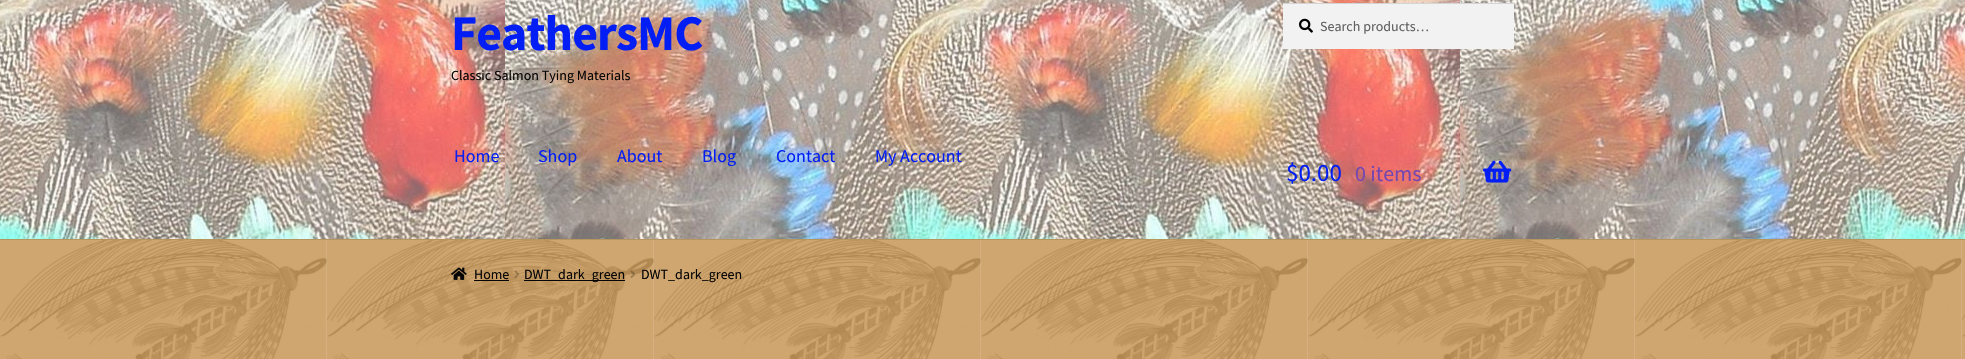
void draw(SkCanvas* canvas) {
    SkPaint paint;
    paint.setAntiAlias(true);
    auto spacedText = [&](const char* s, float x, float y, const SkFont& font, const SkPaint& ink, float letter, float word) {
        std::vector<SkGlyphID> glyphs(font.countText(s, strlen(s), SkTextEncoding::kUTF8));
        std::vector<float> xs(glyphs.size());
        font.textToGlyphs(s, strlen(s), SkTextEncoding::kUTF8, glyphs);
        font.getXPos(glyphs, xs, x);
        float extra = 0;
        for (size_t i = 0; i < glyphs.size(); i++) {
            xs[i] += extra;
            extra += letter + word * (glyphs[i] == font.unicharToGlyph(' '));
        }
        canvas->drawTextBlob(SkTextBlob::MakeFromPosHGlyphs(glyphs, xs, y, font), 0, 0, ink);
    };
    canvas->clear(0xFFFFFFFF);
    canvas->drawImageRect(SkImages::DeferredFromEncodedData(SkData::MakeFromFileName("img1.png")), SkRect::MakeXYWH(0, 240, 1965, 119), SkSamplingOptions());
    canvas->drawImageRect(SkImages::DeferredFromEncodedData(SkData::MakeFromFileName("img2.png")), SkRect::MakeXYWH(0, 0, 1965, 239), SkSamplingOptions());
    paint.setColor(0xFFB7955E);
    canvas->drawRect(SkRect::MakeXYWH(0, 239, 1965, 1), paint);
    SkFont font1(fontMgr->matchFamilyStyle("Source Sans Pro", SkFontStyle::Bold()), 50);
    font1.setSubpixel(true);
    paint.setColor(0xFF021EF4);
    spacedText("FeathersMC", 451, 50, font1, paint, -1, 0);
    SkFont font2(fontMgr->matchFamilyStyle("Source Sans Pro", SkFontStyle::Normal()), 14);
    font2.setSubpixel(true);
    paint.setColor(0xFF050505);
    canvas->drawString("Classic Salmon Tying Materials", 451, 80, font2, paint);
    paint.setColor(0xFFF2F2F2);
    canvas->drawRect(SkRect::MakeXYWH(1283, 4, 231, 45), paint);
    canvas->drawImageRect(SkImages::DeferredFromEncodedData(SkData::MakeFromFileName("img3.png")), SkRect::MakeXYWH(1299, 18, 14, 15), SkSamplingOptions());
    paint.setColor(0xFFD4D4D4);
    canvas->drawRect(SkRect::MakeXYWH(1283, 3, 231, 1), paint);
    paint.setColor(0xFF616161);
    canvas->drawString("Search products…", 1320, 31, font2, paint);
    SkFont font3(fontMgr->matchFamilyStyle("Source Sans Pro", SkFontStyle::Normal()), 18);
    font3.setSubpixel(true);
    paint.setColor(0xFF021EF4);
    canvas->drawString("Home", 454, 162, font3, paint);
    canvas->drawString("Shop", 538, 162, font3, paint);
    canvas->drawString("About", 617, 162, font3, paint);
    canvas->drawString("Blog", 702, 162, font3, paint);
    canvas->drawString("Contact", 776, 162, font3, paint);
    canvas->drawString("My Account", 875, 162, font3, paint);
    SkFont font4(fontMgr->matchFamilyStyle("Source Sans Pro", SkFontStyle::Normal()), 25);
    font4.setSubpixel(true);
    canvas->drawString("$0.00", 1286, 181, font4, paint);
    SkFont font5(fontMgr->matchFamilyStyle("Source Sans Pro", SkFontStyle::Normal()), 22);
    font5.setSubpixel(true);
    paint.setColor(0xFF7347B0);
    canvas->drawString("0 items", 1355, 181, font5, paint);
    canvas->drawImageRect(SkImages::DeferredFromEncodedData(SkData::MakeFromFileName("img4.png")), SkRect::MakeXYWH(1483, 160, 29, 23), SkSamplingOptions());
    canvas->drawImageRect(SkImages::DeferredFromEncodedData(SkData::MakeFromFileName("img5.png")), SkRect::MakeXYWH(451, 267, 16, 13), SkSamplingOptions());
    paint.setColor(0xFF050505);
    canvas->drawString("Home", 474, 279, font2, paint);
    canvas->drawRect(SkRect::MakeXYWH(474, 280, 35, 1), paint);
    canvas->drawImageRect(SkImages::DeferredFromEncodedData(SkData::MakeFromFileName("img6.png")), SkRect::MakeXYWH(514, 270, 6, 8), SkSamplingOptions());
    canvas->drawRect(SkRect::MakeXYWH(524, 280, 101, 1), paint);
    canvas->drawString("DWT_dark_green", 524, 279, font2, paint);
    canvas->drawImageRect(SkImages::DeferredFromEncodedData(SkData::MakeFromFileName("img7.png")), SkRect::MakeXYWH(630, 270, 6, 8), SkSamplingOptions());
    canvas->drawString("DWT_dark_green", 641, 279, font2, paint);
}
